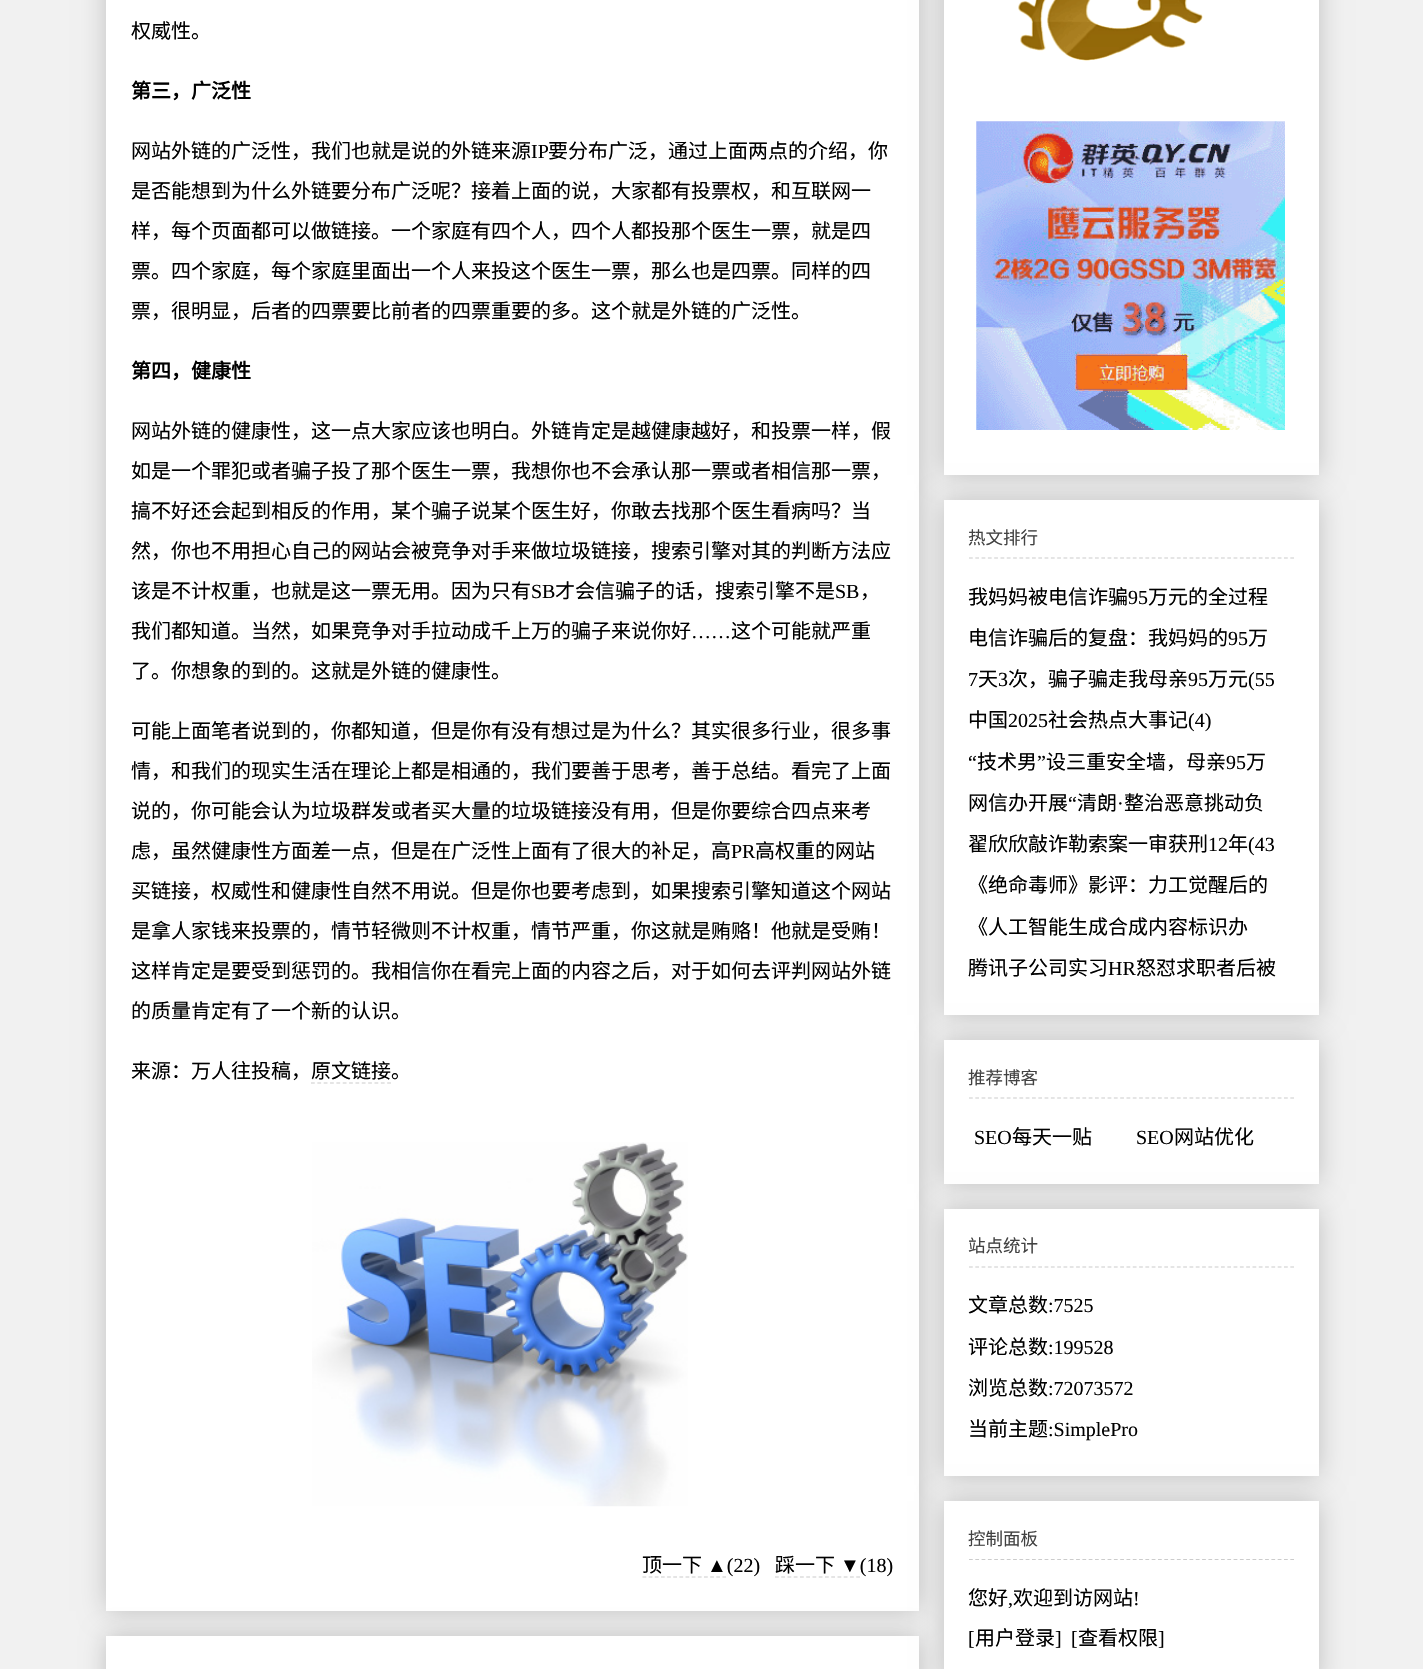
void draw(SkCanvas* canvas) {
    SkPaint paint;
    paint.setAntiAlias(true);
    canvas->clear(0xFFF1F1F1);
    paint.setColor(0x33000000);
    paint.setMaskFilter(SkMaskFilter::MakeBlur(kNormal_SkBlurStyle, 12.5f));
    canvas->drawRect(SkRect::MakeXYWH(106, -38, 813, 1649), paint);
    paint.setMaskFilter(nullptr);
    paint.setColor(0xFFFFFFFF);
    canvas->drawRect(SkRect::MakeXYWH(106, 0, 813, 1611), paint);
    SkFont font1(fontMgr->matchFamilyStyle("Noto Sans CJK SC", SkFontStyle::Normal()), 20);
    font1.setSubpixel(true);
    paint.setColor(0xFF000000);
    canvas->drawString("权威性。", 131, 38, font1, paint);
    SkFont font2(fontMgr->matchFamilyStyle("Noto Sans CJK SC", SkFontStyle::Bold()), 20);
    font2.setSubpixel(true);
    canvas->drawString("第三，广泛性", 131, 98, font2, paint);
    canvas->drawString("网站外链的广泛性，我们也就是说的外链来源", 131, 158, font1, paint);
    SkFont font3(fontMgr->matchFamilyStyle("Liberation Serif", SkFontStyle::Normal()), 20);
    font3.setSubpixel(true);
    canvas->drawString("IP", 531, 158, font3, paint);
    canvas->drawString("要分布广泛，通过上面两点的介绍，你", 548, 158, font1, paint);
    canvas->drawString("是否能想到为什么外链要分布广泛呢？接着上面的说，大家都有投票权，和互联网一", 131, 198, font1, paint);
    canvas->drawString("样，每个页面都可以做链接。一个家庭有四个人，四个人都投那个医生一票，就是四", 131, 238, font1, paint);
    canvas->drawString("票。四个家庭，每个家庭里面出一个人来投这个医生一票，那么也是四票。同样的四", 131, 278, font1, paint);
    canvas->drawString("票，很明显，后者的四票要比前者的四票重要的多。这个就是外链的广泛性。", 131, 318, font1, paint);
    canvas->drawString("第四，健康性", 131, 378, font2, paint);
    canvas->drawString("网站外链的健康性，这一点大家应该也明白。外链肯定是越健康越好，和投票一样，假", 131, 438, font1, paint);
    canvas->drawString("如是一个罪犯或者骗子投了那个医生一票，我想你也不会承认那一票或者相信那一票，", 131, 478, font1, paint);
    canvas->drawString("搞不好还会起到相反的作用，某个骗子说某个医生好，你敢去找那个医生看病吗？当", 131, 518, font1, paint);
    canvas->drawString("然，你也不用担心自己的网站会被竞争对手来做垃圾链接，搜索引擎对其的判断方法应", 131, 558, font1, paint);
    canvas->drawString("该是不计权重，也就是这一票无用。因为只有", 131, 598, font1, paint);
    canvas->drawString("SB", 531, 598, font3, paint);
    canvas->drawString("才会信骗子的话，搜索引擎不是", 555, 598, font1, paint);
    canvas->drawString("SB", 835, 598, font3, paint);
    canvas->drawString("，", 860, 598, font1, paint);
    canvas->drawString("我们都知道。当然，如果竞争对手拉动成千上万的骗子来说你好", 131, 638, font1, paint);
    canvas->drawString("……", 691, 638, font3, paint);
    canvas->drawString("这个可能就严重", 731, 638, font1, paint);
    canvas->drawString("了。你想象的到的。这就是外链的健康性。", 131, 678, font1, paint);
    canvas->drawString("可能上面笔者说到的，你都知道，但是你有没有想过是为什么？其实很多行业，很多事", 131, 738, font1, paint);
    canvas->drawString("情，和我们的现实生活在理论上都是相通的，我们要善于思考，善于总结。看完了上面", 131, 778, font1, paint);
    canvas->drawString("说的，你可能会认为垃圾群发或者买大量的垃圾链接没有用，但是你要综合四点来考", 131, 818, font1, paint);
    canvas->drawString("虑，虽然健康性方面差一点，但是在广泛性上面有了很大的补足，高", 131, 858, font1, paint);
    canvas->drawString("PR", 731, 858, font3, paint);
    canvas->drawString("高权重的网站", 755, 858, font1, paint);
    canvas->drawString("买链接，权威性和健康性自然不用说。但是你也要考虑到，如果搜索引擎知道这个网站", 131, 898, font1, paint);
    canvas->drawString("是拿人家钱来投票的，情节轻微则不计权重，情节严重，你这就是贿赂！他就是受贿！", 131, 938, font1, paint);
    canvas->drawString("这样肯定是要受到惩罚的。我相信你在看完上面的内容之后，对于如何去评判网站外链", 131, 978, font1, paint);
    canvas->drawString("的质量肯定有了一个新的认识。", 131, 1018, font1, paint);
    canvas->drawString("来源：万人往投稿，原文链接。", 131, 1078, font1, paint);
    paint.setStyle(SkPaint::kStroke_Style);
    paint.setStrokeWidth(1.2f);
    paint.setColor(0xFFCCCCCC);
    paint.setPathEffect(SkDashPathEffect::Make({{3.75f, 2.6f}}, 0));
    canvas->drawPath(SkPathBuilder().moveTo(311, 1083).lineTo(391, 1083).detach(), paint);
    paint.setPathEffect(nullptr);
    canvas->drawImageRect(SkImages::DeferredFromEncodedData(SkData::MakeFromFileName("img1.png")), SkRect::MakeXYWH(312, 1142, 376, 365), SkSamplingOptions());
    paint.setStyle(SkPaint::kFill_Style);
    paint.setColor(0xFF000000);
    canvas->drawString("顶一下", 642, 1572, font1, paint);
    paint.setStyle(SkPaint::kStroke_Style);
    paint.setColor(0xFFCCCCCC);
    paint.setPathEffect(SkDashPathEffect::Make({{3.75f, 2.4f}}, 0));
    canvas->drawPath(SkPathBuilder().moveTo(642.5f, 1577).lineTo(726, 1577).detach(), paint);
    paint.setPathEffect(nullptr);
    paint.setStyle(SkPaint::kFill_Style);
    paint.setColor(0xFF000000);
    canvas->drawString("▲(22)", 707, 1572, font3, paint);
    canvas->drawString("踩一下", 775, 1572, font1, paint);
    paint.setStyle(SkPaint::kStroke_Style);
    paint.setColor(0xFFCCCCCC);
    paint.setPathEffect(SkDashPathEffect::Make({{3.75f, 2.5f}}, 0));
    canvas->drawPath(SkPathBuilder().moveTo(775, 1577).lineTo(860, 1577).detach(), paint);
    paint.setPathEffect(nullptr);
    paint.setStyle(SkPaint::kFill_Style);
    paint.setColor(0xFF000000);
    canvas->drawString("▼(18)", 840, 1572, font3, paint);
    paint.setColor(0x33000000);
    paint.setMaskFilter(SkMaskFilter::MakeBlur(kNormal_SkBlurStyle, 12.5f));
    canvas->drawRect(SkRect::MakeXYWH(106, 1636, 813, 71), paint);
    paint.setMaskFilter(nullptr);
    paint.setColor(0xFFFFFFFF);
    canvas->drawRect(SkRect::MakeXYWH(106, 1636, 813, 33), paint);
    paint.setColor(0x33000000);
    paint.setMaskFilter(SkMaskFilter::MakeBlur(kNormal_SkBlurStyle, 12.5f));
    canvas->drawRect(SkRect::MakeXYWH(944, -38, 375, 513), paint);
    paint.setMaskFilter(nullptr);
    paint.setColor(0xFFFFFFFF);
    canvas->drawRect(SkRect::MakeXYWH(944, 0, 375, 475), paint);
    canvas->drawImageRect(SkImages::DeferredFromEncodedData(SkData::MakeFromFileName("img2.png")), SkRect::MakeXYWH(1018, 0, 185, 61), SkSamplingOptions());
    canvas->drawImageRect(SkImages::DeferredFromEncodedData(SkData::MakeFromFileName("img3.png")), SkRect::MakeXYWH(976, 121, 309, 309), SkSamplingOptions());
    paint.setColor(0x33000000);
    paint.setMaskFilter(SkMaskFilter::MakeBlur(kNormal_SkBlurStyle, 12.5f));
    canvas->drawRect(SkRect::MakeXYWH(944, 500, 375, 515), paint);
    paint.setMaskFilter(nullptr);
    paint.setColor(0xFFFFFFFF);
    canvas->drawRect(SkRect::MakeXYWH(944, 500, 375, 515), paint);
    paint.setStyle(SkPaint::kStroke_Style);
    paint.setColor(0xFFCCCCCC);
    paint.setPathEffect(SkDashPathEffect::Make({{3.75f, 2.55f}}, 0));
    canvas->drawPath(SkPathBuilder().moveTo(969, 558).lineTo(1294, 558).detach(), paint);
    paint.setPathEffect(nullptr);
    SkFont font4(fontMgr->matchFamilyStyle("Noto Sans CJK SC", SkFontStyle::Normal()), 17.5f);
    font4.setSubpixel(true);
    paint.setStyle(SkPaint::kFill_Style);
    paint.setColor(0xFF424242);
    canvas->drawString("热文排行", 968, 544, font4, paint);
    paint.setColor(0xFF000000);
    canvas->drawString("我妈妈被电信诈骗", 968, 604, font1, paint);
    canvas->drawString("95", 1128, 604, font3, paint);
    canvas->drawString("万元的全过程", 1148, 604, font1, paint);
    canvas->drawString("电信诈骗后的复盘：我妈妈的", 968, 645, font1, paint);
    canvas->drawString("95", 1228, 645, font3, paint);
    canvas->drawString("万", 1248, 645, font1, paint);
    canvas->drawString("7", 968, 686, font3, paint);
    canvas->drawString("天", 978, 686, font1, paint);
    canvas->drawString("3", 998, 686, font3, paint);
    canvas->drawString("次，骗子骗走我母亲", 1008, 686, font1, paint);
    canvas->drawString("95", 1188, 686, font3, paint);
    canvas->drawString("万元", 1208, 686, font1, paint);
    canvas->drawString("(55", 1248, 686, font3, paint);
    canvas->drawString("中国", 968, 727, font1, paint);
    canvas->drawString("2025", 1008, 727, font3, paint);
    canvas->drawString("社会热点大事记", 1048, 727, font1, paint);
    canvas->drawString("(4)", 1188, 727, font3, paint);
    canvas->drawString("“", 968, 769, font3, paint);
    canvas->drawString("技术男", 977, 769, font1, paint);
    canvas->drawString("”", 1037, 769, font3, paint);
    canvas->drawString("设三重安全墙，母亲", 1046, 769, font1, paint);
    canvas->drawString("95", 1226, 769, font3, paint);
    canvas->drawString("万", 1246, 769, font1, paint);
    canvas->drawString("网信办开展", 968, 810, font1, paint);
    canvas->drawString("“", 1068, 810, font3, paint);
    canvas->drawString("清朗", 1077, 810, font1, paint);
    canvas->drawString("整治恶意挑动负", 1124, 810, font1, paint);
    canvas->drawString("·", 1117, 810, font3, paint);
    canvas->drawString("翟欣欣敲诈勒索案一审获刑", 968, 851, font1, paint);
    canvas->drawString("12", 1208, 851, font3, paint);
    canvas->drawString("年", 1228, 851, font1, paint);
    canvas->drawString("(43", 1248, 851, font3, paint);
    canvas->drawString("《绝命毒师》影评：力工觉醒后的", 968, 892, font1, paint);
    canvas->drawString("《人工智能生成合成内容标识办", 968, 934, font1, paint);
    canvas->drawString("腾讯子公司实习", 968, 975, font1, paint);
    canvas->drawString("HR", 1108, 975, font3, paint);
    canvas->drawString("怒怼求职者后被", 1136, 975, font1, paint);
    paint.setColor(0x33000000);
    paint.setMaskFilter(SkMaskFilter::MakeBlur(kNormal_SkBlurStyle, 12.5f));
    canvas->drawRect(SkRect::MakeXYWH(944, 1040, 375, 144), paint);
    paint.setMaskFilter(nullptr);
    paint.setColor(0xFFFFFFFF);
    canvas->drawRect(SkRect::MakeXYWH(944, 1040, 375, 144), paint);
    paint.setStyle(SkPaint::kStroke_Style);
    paint.setColor(0xFFCCCCCC);
    paint.setPathEffect(SkDashPathEffect::Make({{3.75f, 2.55f}}, 0));
    canvas->drawPath(SkPathBuilder().moveTo(969, 1098).lineTo(1294, 1098).detach(), paint);
    paint.setPathEffect(nullptr);
    paint.setStyle(SkPaint::kFill_Style);
    paint.setColor(0xFF424242);
    canvas->drawString("推荐博客", 968, 1084, font4, paint);
    paint.setColor(0xFF000000);
    canvas->drawString("SEO", 974, 1144, font3, paint);
    canvas->drawString("每天一贴", 1012, 1144, font1, paint);
    canvas->drawString("SEO", 1136, 1144, font3, paint);
    canvas->drawString("网站优化", 1174, 1144, font1, paint);
    paint.setColor(0x33000000);
    paint.setMaskFilter(SkMaskFilter::MakeBlur(kNormal_SkBlurStyle, 12.5f));
    canvas->drawRect(SkRect::MakeXYWH(944, 1209, 375, 267), paint);
    paint.setMaskFilter(nullptr);
    paint.setColor(0xFFFFFFFF);
    canvas->drawRect(SkRect::MakeXYWH(944, 1209, 375, 267), paint);
    paint.setStyle(SkPaint::kStroke_Style);
    paint.setColor(0xFFCCCCCC);
    paint.setPathEffect(SkDashPathEffect::Make({{3.75f, 2.55f}}, 0));
    canvas->drawPath(SkPathBuilder().moveTo(969, 1267).lineTo(1294, 1267).detach(), paint);
    paint.setPathEffect(nullptr);
    paint.setStyle(SkPaint::kFill_Style);
    paint.setColor(0xFF424242);
    canvas->drawString("站点统计", 968, 1252, font4, paint);
    paint.setColor(0xFF000000);
    canvas->drawString("文章总数", 968, 1312, font1, paint);
    canvas->drawString(":7525", 1048, 1312, font3, paint);
    canvas->drawString("评论总数", 968, 1354, font1, paint);
    canvas->drawString(":199528", 1048, 1354, font3, paint);
    canvas->drawString("浏览总数", 968, 1395, font1, paint);
    canvas->drawString(":72073572", 1048, 1395, font3, paint);
    canvas->drawString("当前主题", 968, 1436, font1, paint);
    canvas->drawString(":SimplePro", 1048, 1436, font3, paint);
    paint.setColor(0x33000000);
    paint.setMaskFilter(SkMaskFilter::MakeBlur(kNormal_SkBlurStyle, 12.5f));
    canvas->drawRect(SkRect::MakeXYWH(944, 1501, 375, 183), paint);
    paint.setMaskFilter(nullptr);
    paint.setColor(0xFFFFFFFF);
    canvas->drawRect(SkRect::MakeXYWH(944, 1501, 375, 168), paint);
    paint.setStyle(SkPaint::kStroke_Style);
    paint.setColor(0xFFCCCCCC);
    paint.setPathEffect(SkDashPathEffect::Make({{3.75f, 2.55f}}, 0));
    canvas->drawPath(SkPathBuilder().moveTo(969, 1559.5f).lineTo(1294, 1559.5f).detach(), paint);
    paint.setPathEffect(nullptr);
    paint.setStyle(SkPaint::kFill_Style);
    paint.setColor(0xFF424242);
    canvas->drawString("控制面板", 968, 1545, font4, paint);
    paint.setColor(0xFF000000);
    canvas->drawString("您好", 968, 1605, font1, paint);
    canvas->drawString(",", 1008, 1605, font3, paint);
    canvas->drawString("欢迎到访网站", 1013, 1605, font1, paint);
    canvas->drawString("!", 1133, 1605, font3, paint);
    canvas->drawString("[", 968, 1645, font3, paint);
    canvas->drawString("用户登录", 975, 1645, font1, paint);
    canvas->drawString("]", 1055, 1645, font3, paint);
    canvas->drawString("[", 1071, 1645, font3, paint);
    canvas->drawString("查看权限", 1078, 1645, font1, paint);
    canvas->drawString("]", 1158, 1645, font3, paint);
}
